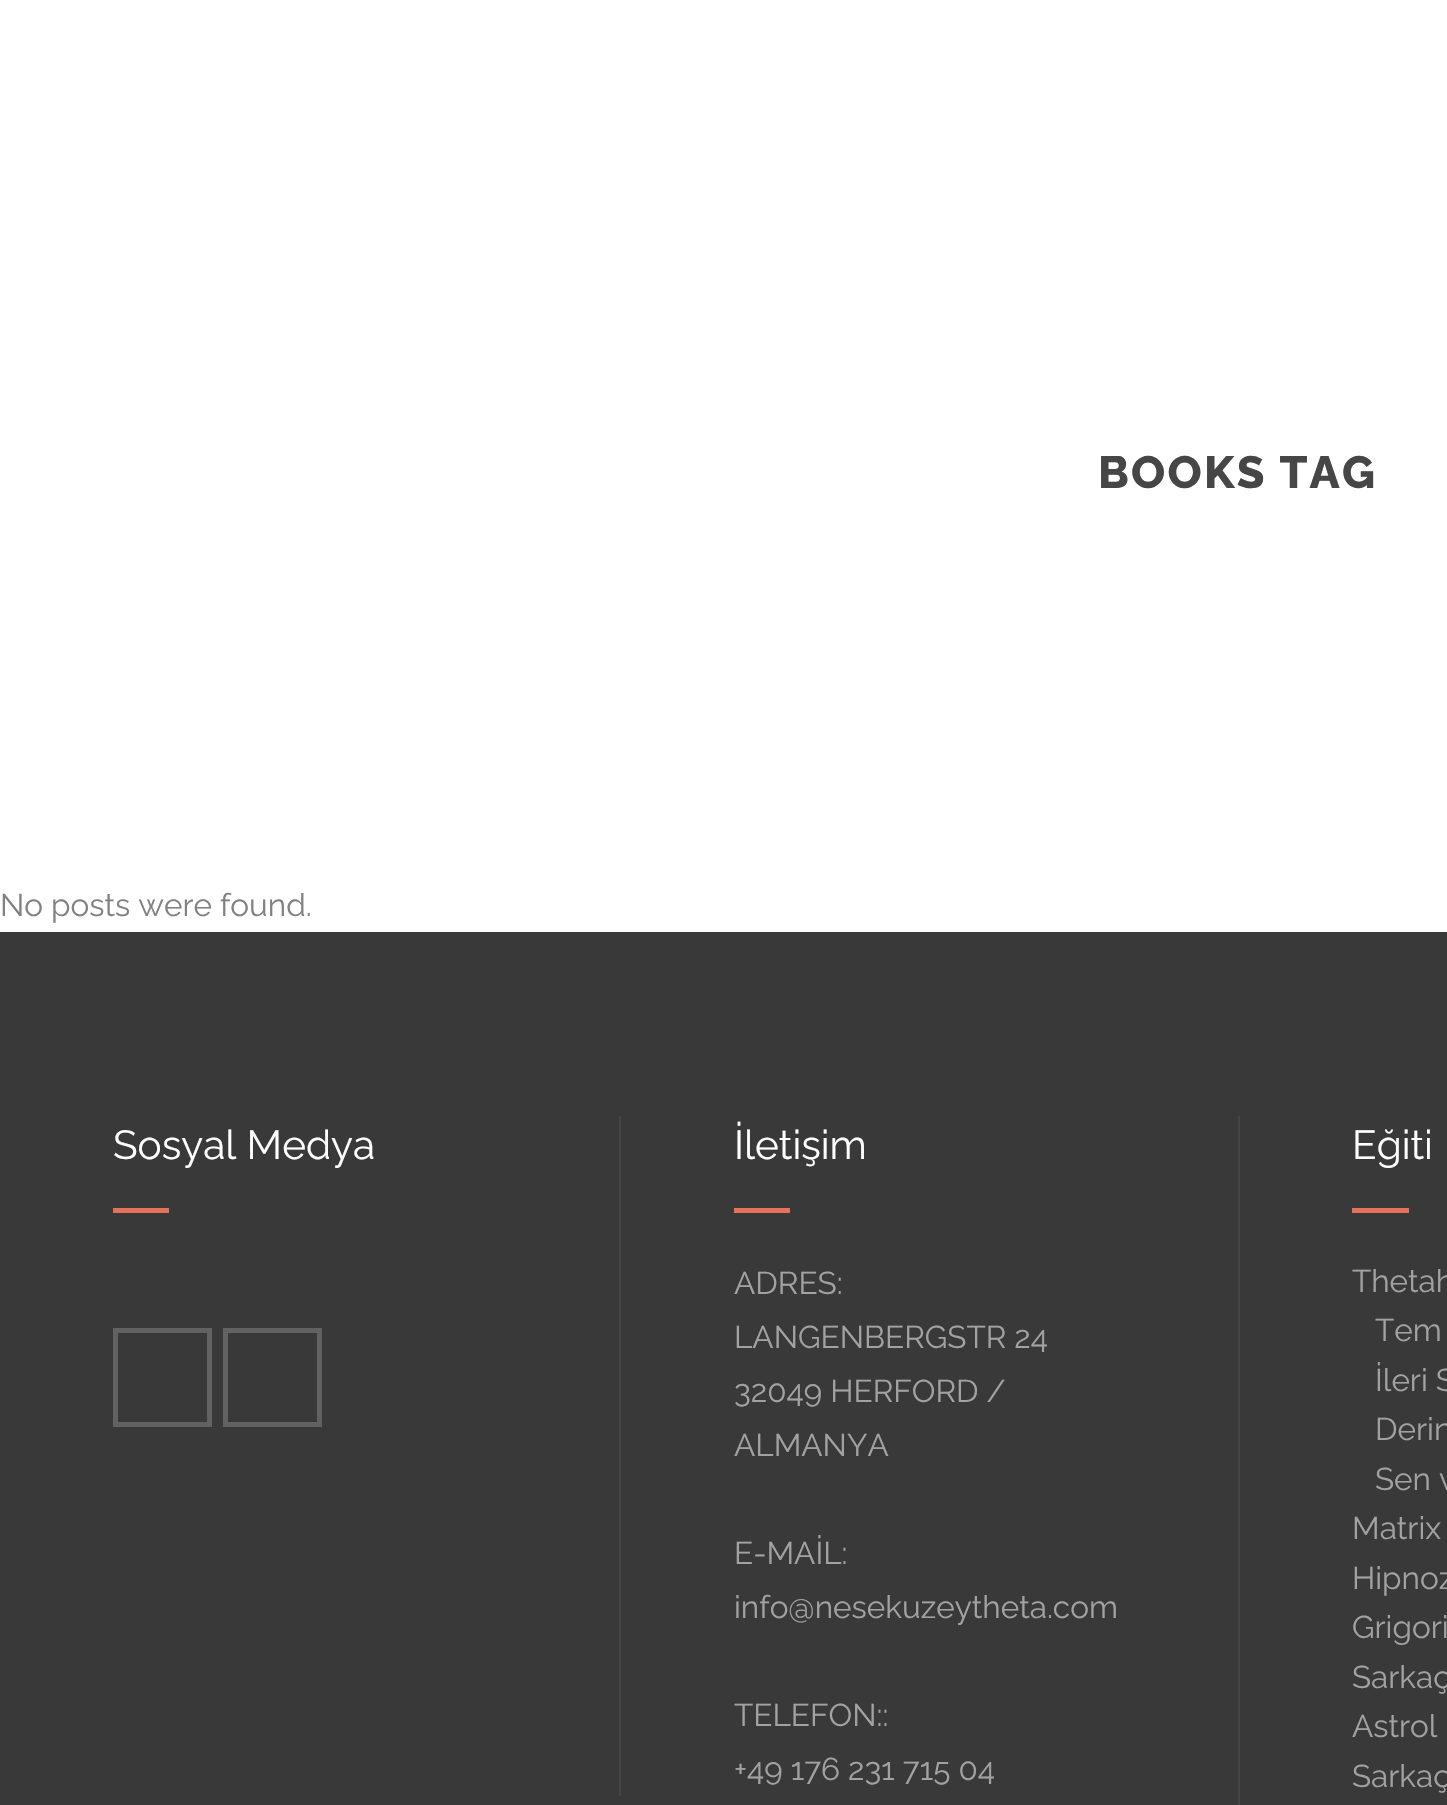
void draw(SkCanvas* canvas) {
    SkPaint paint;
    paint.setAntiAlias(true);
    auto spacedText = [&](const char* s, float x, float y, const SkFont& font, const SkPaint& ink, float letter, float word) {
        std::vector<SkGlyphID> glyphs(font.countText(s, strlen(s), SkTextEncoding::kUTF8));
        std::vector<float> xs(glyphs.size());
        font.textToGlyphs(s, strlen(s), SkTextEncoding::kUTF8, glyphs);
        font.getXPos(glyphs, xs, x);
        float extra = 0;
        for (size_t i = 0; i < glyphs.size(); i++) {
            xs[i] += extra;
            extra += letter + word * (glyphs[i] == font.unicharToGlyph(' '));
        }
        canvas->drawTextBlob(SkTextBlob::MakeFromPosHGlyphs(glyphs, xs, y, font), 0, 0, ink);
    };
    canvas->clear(0xFFFFFFFF);
    SkFont font1(fontMgr->matchFamilyStyle("Raleway", SkFontStyle(800, SkFontStyle::kNormal_Width, SkFontStyle::kUpright_Slant)), 45);
    font1.setSubpixel(true);
    paint.setColor(0xFF464646);
    spacedText("BOOKS TAG", 1098, 488, font1, paint, 2.25f, 0);
    SkFont font2(fontMgr->matchFamilyStyle("Raleway", SkFontStyle::Normal()), 31.5f);
    font2.setSubpixel(true);
    paint.setColor(0xFF818181);
    canvas->drawString("No posts were found.", 0, 916, font2, paint);
    paint.setColor(0xFF393939);
    canvas->drawRect(SkRect::MakeXYWH(0, 932, 1447, 873), paint);
    SkFont font3(fontMgr->matchFamilyStyle("Raleway", SkFontStyle::Normal()), 40.5f);
    font3.setSubpixel(true);
    paint.setColor(0xFFFFFFFF);
    canvas->drawString("Sosyal Medya", 113, 1159, font3, paint);
    paint.setColor(0xFFE5735C);
    canvas->drawRect(SkRect::MakeXYWH(113, 1208, 56, 5), paint);
    paint.setStyle(SkPaint::kStroke_Style);
    paint.setStrokeWidth(5);
    paint.setColor(0xFF626262);
    canvas->drawRect(SkRect::MakeXYWH(115.5f, 1330.5f, 94, 94), paint);
    canvas->drawRect(SkRect::MakeXYWH(225.5f, 1330.5f, 94, 94), paint);
    paint.setStyle(SkPaint::kFill_Style);
    paint.setColor(0xFF444444);
    canvas->drawRect(SkRect::MakeXYWH(619, 1116, 2, 680), paint);
    paint.setColor(0xFFFFFFFF);
    canvas->drawString("İletişim", 734, 1159, font3, paint);
    paint.setColor(0xFFE5735C);
    canvas->drawRect(SkRect::MakeXYWH(734, 1208, 56, 5), paint);
    paint.setColor(0xFFA2A2A2);
    canvas->drawString("ADRES:", 734, 1294, font2, paint);
    canvas->drawString("LANGENBERGSTR 24", 734, 1348, font2, paint);
    canvas->drawString("32049 HERFORD /", 734, 1402, font2, paint);
    canvas->drawString("ALMANYA", 734, 1456, font2, paint);
    canvas->drawString("E-MAİL:", 734, 1564, font2, paint);
    canvas->drawString("info@nesekuzeytheta.com", 734, 1618, font2, paint);
    canvas->drawString("TELEFON::", 734, 1726, font2, paint);
    canvas->drawString("+49 176 231 715 04", 734, 1780, font2, paint);
    paint.setColor(0xFF444444);
    canvas->drawRect(SkRect::MakeXYWH(1238, 1116, 2, 689), paint);
    paint.setColor(0xFFFFFFFF);
    canvas->drawString("Eğiti", 1352, 1159, font3, paint);
    paint.setColor(0xFFE5735C);
    canvas->drawRect(SkRect::MakeXYWH(1352, 1208, 57, 5), paint);
    paint.setColor(0xFFA2A2A2);
    canvas->drawString("Thetah", 1352, 1292, font2, paint);
    canvas->drawString("Tem", 1375, 1341, font2, paint);
    canvas->drawString("İleri S", 1375, 1391, font2, paint);
    canvas->drawString("Derin", 1375, 1440, font2, paint);
    canvas->drawString("Sen v", 1375, 1490, font2, paint);
    canvas->drawString("Matrix", 1352, 1539, font2, paint);
    canvas->drawString("Hipnoz", 1352, 1589, font2, paint);
    canvas->drawString("Grigori", 1352, 1638, font2, paint);
    canvas->drawString("Sarkaç", 1352, 1688, font2, paint);
    canvas->drawString("Astrol", 1352, 1737, font2, paint);
    canvas->drawString("Sarkaç", 1352, 1787, font2, paint);
}
